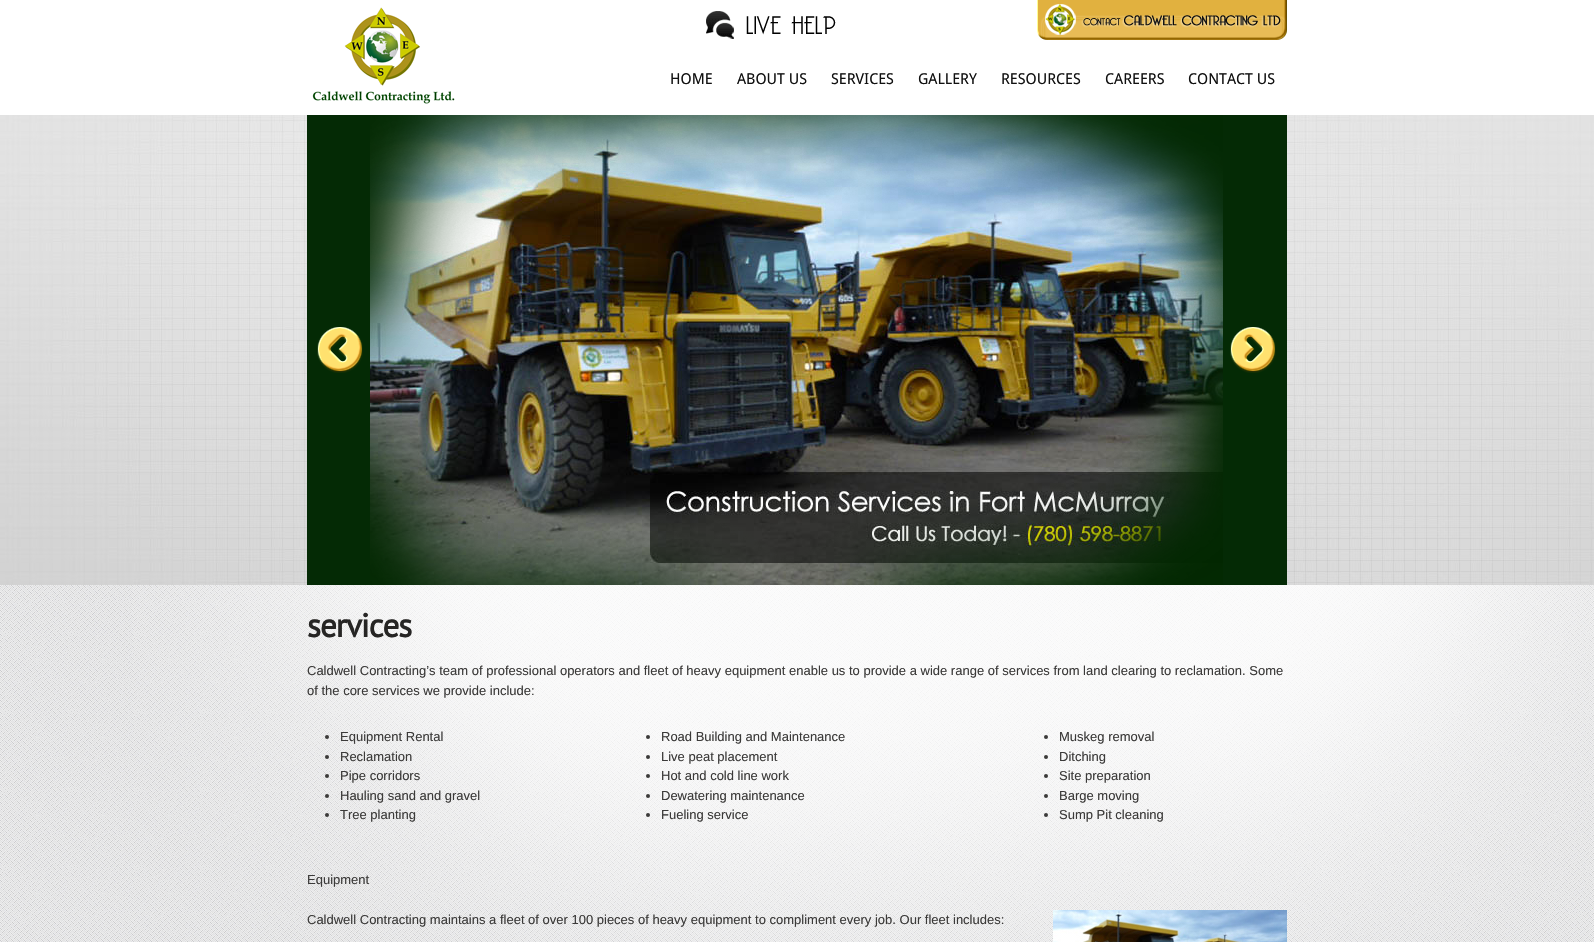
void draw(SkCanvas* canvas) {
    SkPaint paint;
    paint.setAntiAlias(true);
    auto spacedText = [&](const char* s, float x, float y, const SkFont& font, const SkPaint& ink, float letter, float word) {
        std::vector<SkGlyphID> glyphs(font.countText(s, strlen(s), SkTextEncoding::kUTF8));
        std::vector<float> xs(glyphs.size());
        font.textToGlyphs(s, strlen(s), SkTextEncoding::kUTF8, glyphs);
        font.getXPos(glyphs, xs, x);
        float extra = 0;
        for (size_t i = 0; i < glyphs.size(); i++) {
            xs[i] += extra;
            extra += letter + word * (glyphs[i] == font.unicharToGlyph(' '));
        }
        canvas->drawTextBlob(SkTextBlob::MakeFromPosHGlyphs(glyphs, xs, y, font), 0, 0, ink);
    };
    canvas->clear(0xFFFFFFFF);
    canvas->drawImageRect(SkImages::DeferredFromEncodedData(SkData::MakeFromFileName("img1.png")), SkRect::MakeXYWH(0, 585, 1594, 357), SkSamplingOptions());
    canvas->drawImageRect(SkImages::DeferredFromEncodedData(SkData::MakeFromFileName("img2.png")), SkRect::MakeXYWH(132, 585, 1462, 357), SkSamplingOptions());
    canvas->drawImageRect(SkImages::DeferredFromEncodedData(SkData::MakeFromFileName("img3.png")), SkRect::MakeXYWH(312, 7, 143, 97), SkSamplingOptions());
    canvas->drawImageRect(SkImages::DeferredFromEncodedData(SkData::MakeFromFileName("img4.png")), SkRect::MakeXYWH(706, 11, 130, 28), SkSamplingOptions());
    canvas->drawImageRect(SkImages::DeferredFromEncodedData(SkData::MakeFromFileName("img5.png")), SkRect::MakeXYWH(1037, 0, 250, 40), SkSamplingOptions());
    SkFont font1(fontMgr->matchFamilyStyle("Droid Sans", SkFontStyle::Normal()), 15);
    font1.setSubpixel(true);
    paint.setColor(0xFF111111);
    canvas->drawString("HOME", 670, 84, font1, paint);
    canvas->drawString("ABOUT US", 737, 84, font1, paint);
    canvas->drawString("SERVICES", 831, 84, font1, paint);
    canvas->drawString("GALLERY", 918, 84, font1, paint);
    canvas->drawString("RESOURCES", 1001, 84, font1, paint);
    canvas->drawString("CAREERS", 1105, 84, font1, paint);
    canvas->drawString("CONTACT US", 1188, 84, font1, paint);
    canvas->drawImageRect(SkImages::DeferredFromEncodedData(SkData::MakeFromFileName("img6.png")), SkRect::MakeXYWH(0, 115, 1594, 470), SkSamplingOptions());
    paint.setColor(0xFF042A05);
    canvas->drawRect(SkRect::MakeXYWH(307, 115, 980, 470), paint);
    canvas->drawImageRect(SkImages::DeferredFromEncodedData(SkData::MakeFromFileName("img7.png")), SkRect::MakeXYWH(370, 115, 853, 470), SkSamplingOptions());
    canvas->drawImageRect(SkImages::DeferredFromEncodedData(SkData::MakeFromFileName("img8.png")), SkRect::MakeXYWH(370, 115, 853, 470), SkSamplingOptions());
    canvas->drawImageRect(SkImages::DeferredFromEncodedData(SkData::MakeFromFileName("img9.png")), SkRect::MakeXYWH(317, 327, 46, 46), SkSamplingOptions());
    canvas->drawImageRect(SkImages::DeferredFromEncodedData(SkData::MakeFromFileName("img10.png")), SkRect::MakeXYWH(1230, 327, 46, 46), SkSamplingOptions());
    SkFont font2(fontMgr->matchFamilyStyle("PT Sans", SkFontStyle::Bold()), 33);
    font2.setSubpixel(true);
    paint.setColor(0xFF262524);
    spacedText("services", 307, 637, font2, paint, -1, 0);
    SkFont font3(fontMgr->matchFamilyStyle("Liberation Sans", SkFontStyle::Normal()), 13);
    font3.setSubpixel(true);
    paint.setColor(0xFF3B3A39);
    canvas->drawString("Caldwell Contracting’s team of professional operators and fleet of heavy equipment enable us to provide a wide range of services from land clearing to reclamation. Some", 307, 675, font3, paint);
    canvas->drawString("of the core services we provide include:", 307, 695, font3, paint);
    canvas->drawCircle(327, 737, 2, paint);
    canvas->drawString("Equipment Rental", 340, 741, font3, paint);
    canvas->drawCircle(327, 757, 2, paint);
    canvas->drawString("Reclamation", 340, 761, font3, paint);
    canvas->drawCircle(327, 776, 2, paint);
    canvas->drawString("Pipe corridors", 340, 780, font3, paint);
    canvas->drawCircle(327, 796, 2, paint);
    canvas->drawString("Hauling sand and gravel", 340, 800, font3, paint);
    canvas->drawCircle(327, 815, 2, paint);
    canvas->drawString("Tree planting", 340, 819, font3, paint);
    canvas->drawCircle(648, 737, 2, paint);
    canvas->drawString("Road Building and Maintenance", 661, 741, font3, paint);
    canvas->drawCircle(648, 757, 2, paint);
    canvas->drawString("Live peat placement", 661, 761, font3, paint);
    canvas->drawCircle(648, 776, 2, paint);
    canvas->drawString("Hot and cold line work", 661, 780, font3, paint);
    canvas->drawCircle(648, 796, 2, paint);
    canvas->drawString("Dewatering maintenance", 661, 800, font3, paint);
    canvas->drawCircle(648, 815, 2, paint);
    canvas->drawString("Fueling service", 661, 819, font3, paint);
    canvas->drawCircle(1046, 737, 2, paint);
    canvas->drawString("Muskeg removal", 1059, 741, font3, paint);
    canvas->drawCircle(1046, 757, 2, paint);
    canvas->drawString("Ditching", 1059, 761, font3, paint);
    canvas->drawCircle(1046, 776, 2, paint);
    canvas->drawString("Site preparation", 1059, 780, font3, paint);
    canvas->drawCircle(1046, 796, 2, paint);
    canvas->drawString("Barge moving", 1059, 800, font3, paint);
    canvas->drawCircle(1046, 815, 2, paint);
    canvas->drawString("Sump Pit cleaning", 1059, 819, font3, paint);
    canvas->drawString("Equipment", 307, 884, font3, paint);
    canvas->drawString("Caldwell Contracting maintains a fleet of over 100 pieces of heavy equipment to compliment every job. Our fleet includes:", 307, 924, font3, paint);
    canvas->drawImageRect(SkImages::DeferredFromEncodedData(SkData::MakeFromFileName("img11.png")), SkRect::MakeXYWH(1053, 910, 234, 32), SkSamplingOptions());
}
